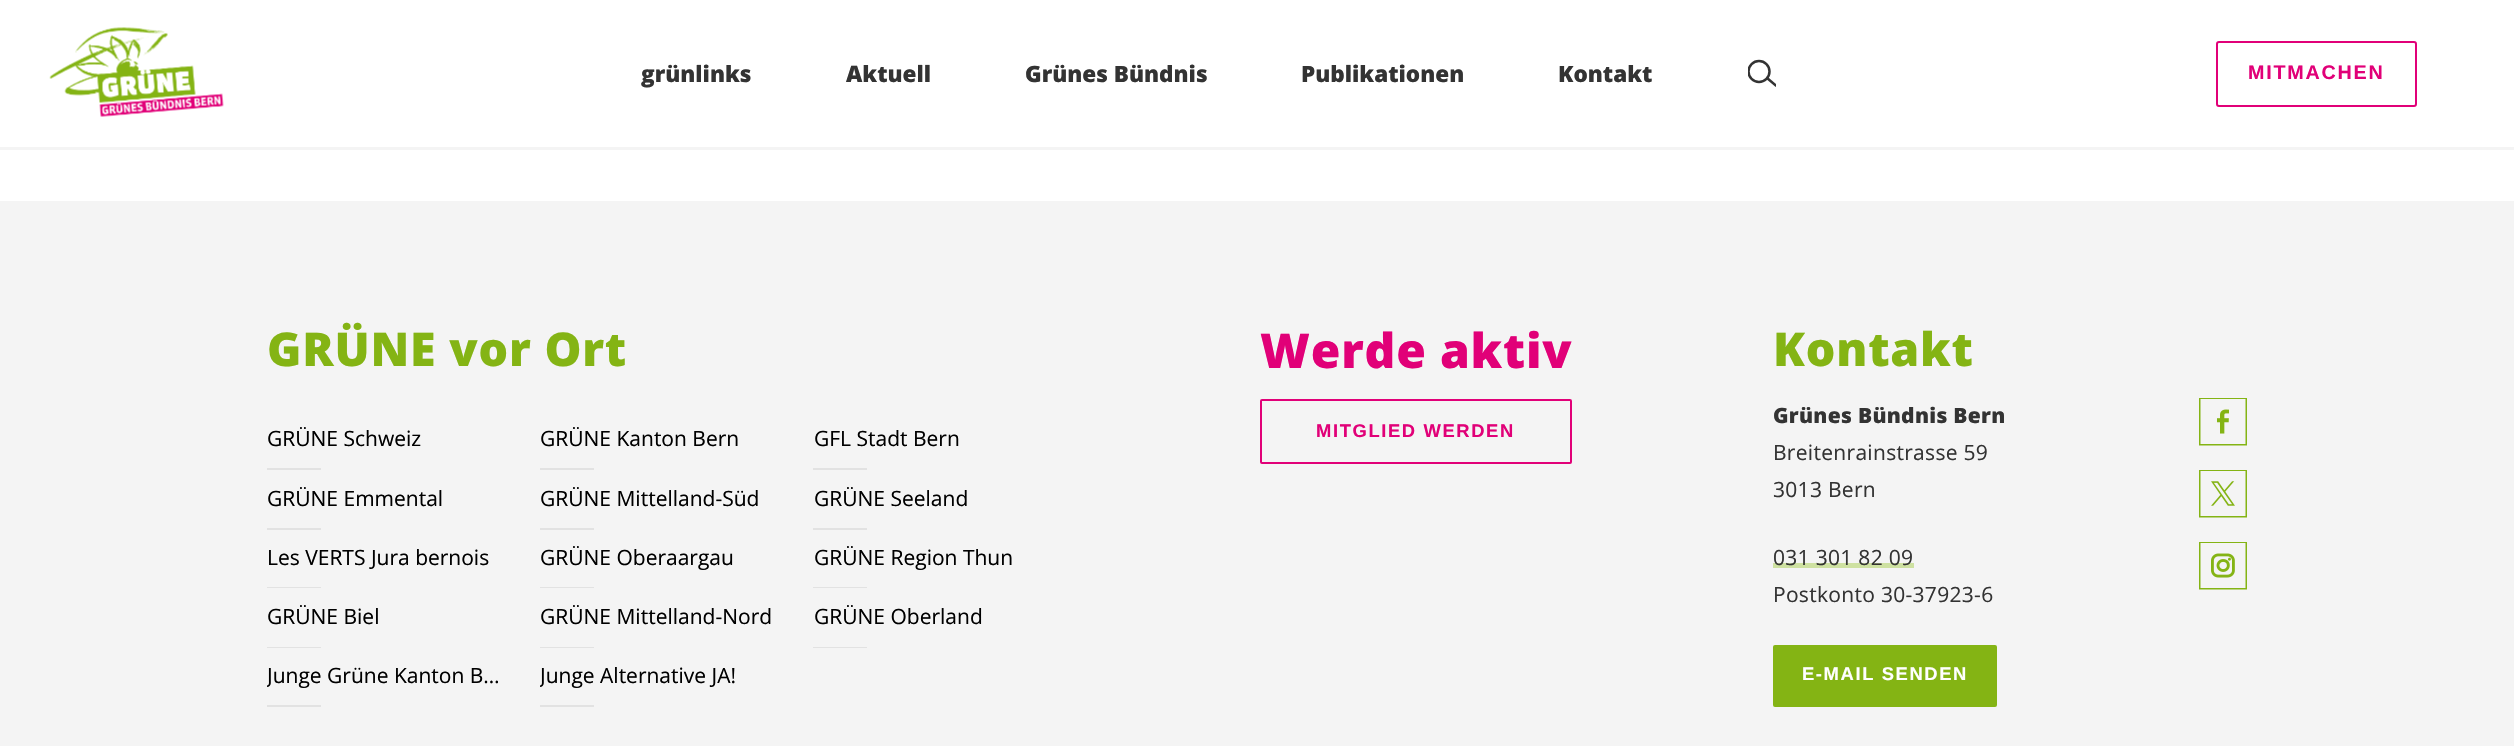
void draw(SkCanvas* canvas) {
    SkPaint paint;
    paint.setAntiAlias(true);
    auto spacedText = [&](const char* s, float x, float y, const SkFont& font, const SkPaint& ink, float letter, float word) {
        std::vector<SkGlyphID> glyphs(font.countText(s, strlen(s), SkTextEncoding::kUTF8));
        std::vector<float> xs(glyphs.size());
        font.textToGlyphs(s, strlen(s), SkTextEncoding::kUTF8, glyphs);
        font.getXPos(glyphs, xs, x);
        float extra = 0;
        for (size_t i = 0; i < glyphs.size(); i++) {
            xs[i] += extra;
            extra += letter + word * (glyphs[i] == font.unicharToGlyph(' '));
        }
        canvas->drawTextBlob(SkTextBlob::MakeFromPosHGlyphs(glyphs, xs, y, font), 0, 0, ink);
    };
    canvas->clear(0xFFFFFFFF);
    paint.setColor(0xFFF4F4F4);
    canvas->drawRect(SkRect::MakeXYWH(0, 147, 2514, 3), paint);
    canvas->drawImageRect(SkImages::DeferredFromEncodedData(SkData::MakeFromFileName("img1.png")), SkRect::MakeXYWH(49, 27, 175, 90), SkSamplingOptions());
    SkFont font1(fontMgr->matchFamilyStyle("Open Sans", SkFontStyle(800, SkFontStyle::kNormal_Width, SkFontStyle::kUpright_Slant)), 22.5f);
    font1.setSubpixel(true);
    paint.setColor(0xFF333333);
    canvas->drawString("grünlinks", 641, 82, font1, paint);
    canvas->drawString("Aktuell", 846, 82, font1, paint);
    canvas->drawString("Grünes Bündnis", 1025, 82, font1, paint);
    canvas->drawString("Publikationen", 1301, 82, font1, paint);
    canvas->drawString("Kontakt", 1558, 82, font1, paint);
    canvas->save();
    canvas->clipRect(SkRect::MakeXYWH(1748, 59, 28, 28));
    paint.setStyle(SkPaint::kStroke_Style);
    paint.setStrokeWidth(2.5f);
    canvas->drawCircle(1759, 71.5f, 10.5f, paint);
    canvas->drawPath(SkPathBuilder().moveTo(1767, 78).lineTo(1776.5f, 86).detach(), paint);
    canvas->restore();
    paint.setStrokeWidth(2);
    paint.setColor(0xFFE10078);
    canvas->drawRoundRect(SkRect::MakeXYWH(2217, 42, 199, 64), 2, 2, paint);
    SkFont font2(fontMgr->matchFamilyStyle("Liberation Sans", SkFontStyle::Bold()), 19.75f);
    font2.setSubpixel(true);
    paint.setStyle(SkPaint::kFill_Style);
    spacedText("MITMACHEN", 2248, 79, font2, paint, 1.75f, 0);
    paint.setColor(0xFFF4F4F4);
    canvas->drawRect(SkRect::MakeXYWH(0, 201, 2514, 545), paint);
    SkFont font3(fontMgr->matchFamilyStyle("Open Sans", SkFontStyle(800, SkFontStyle::kNormal_Width, SkFontStyle::kUpright_Slant)), 46.5f);
    font3.setSubpixel(true);
    paint.setColor(0xFF84B414);
    spacedText("GRÜNE vor Ort", 267, 366, font3, paint, 0.8f, 0);
    SkFont font4(fontMgr->matchFamilyStyle("Open Sans", SkFontStyle::Normal()), 21);
    font4.setSubpixel(true);
    paint.setColor(0xFF000000);
    canvas->drawString("GRÜNE Schweiz", 267, 446, font4, paint);
    paint.setColor(0xFFE2E2E2);
    canvas->drawRect(SkRect::MakeXYWH(267, 468, 54, 2), paint);
    paint.setColor(0xFF000000);
    canvas->drawString("GRÜNE Kanton Bern", 540, 446, font4, paint);
    paint.setColor(0xFFE2E2E2);
    canvas->drawRect(SkRect::MakeXYWH(540, 468, 54, 2), paint);
    paint.setColor(0xFF000000);
    canvas->drawString("GFL Stadt Bern", 814, 446, font4, paint);
    paint.setColor(0xFFE2E2E2);
    canvas->drawRect(SkRect::MakeXYWH(813, 468, 54, 2), paint);
    paint.setColor(0xFF000000);
    canvas->drawString("GRÜNE Emmental", 267, 506, font4, paint);
    paint.setColor(0xFFE2E2E2);
    canvas->drawRect(SkRect::MakeXYWH(267, 528, 54, 2), paint);
    paint.setColor(0xFF000000);
    canvas->drawString("GRÜNE Mittelland-Süd", 540, 506, font4, paint);
    paint.setColor(0xFFE2E2E2);
    canvas->drawRect(SkRect::MakeXYWH(540, 528, 54, 2), paint);
    paint.setColor(0xFF000000);
    canvas->drawString("GRÜNE Seeland", 814, 506, font4, paint);
    paint.setColor(0xFFE2E2E2);
    canvas->drawRect(SkRect::MakeXYWH(813, 528, 54, 2), paint);
    paint.setColor(0xFF000000);
    canvas->drawString("Les VERTS Jura bernois", 267, 565, font4, paint);
    paint.setColor(0xFFE2E2E2);
    canvas->drawRect(SkRect::MakeXYWH(267, 587, 54, 1), paint);
    paint.setColor(0xFF000000);
    canvas->drawString("GRÜNE Oberaargau", 540, 565, font4, paint);
    paint.setColor(0xFFE2E2E2);
    canvas->drawRect(SkRect::MakeXYWH(540, 587, 54, 1), paint);
    paint.setColor(0xFF000000);
    canvas->drawString("GRÜNE Region Thun", 814, 565, font4, paint);
    paint.setColor(0xFFE2E2E2);
    canvas->drawRect(SkRect::MakeXYWH(813, 587, 54, 1), paint);
    paint.setColor(0xFF000000);
    canvas->drawString("GRÜNE Biel", 267, 624, font4, paint);
    paint.setColor(0xFFE2E2E2);
    canvas->drawRect(SkRect::MakeXYWH(267, 647, 54, 1), paint);
    paint.setColor(0xFF000000);
    canvas->drawString("GRÜNE Mittelland-Nord", 540, 624, font4, paint);
    paint.setColor(0xFFE2E2E2);
    canvas->drawRect(SkRect::MakeXYWH(540, 647, 54, 1), paint);
    paint.setColor(0xFF000000);
    canvas->drawString("GRÜNE Oberland", 814, 624, font4, paint);
    paint.setColor(0xFFE2E2E2);
    canvas->drawRect(SkRect::MakeXYWH(813, 647, 54, 1), paint);
    canvas->save();
    canvas->clipRect(SkRect::MakeXYWH(267, 648, 237, 59));
    paint.setColor(0xFF000000);
    canvas->drawString("Junge Grüne Kanton B…", 267, 683, font4, paint);
    canvas->restore();
    paint.setColor(0xFFE2E2E2);
    canvas->drawRect(SkRect::MakeXYWH(267, 705, 54, 2), paint);
    canvas->save();
    canvas->clipRect(SkRect::MakeXYWH(540, 648, 237, 59));
    paint.setColor(0xFF000000);
    canvas->drawString("Junge Alternative JA!", 540, 683, font4, paint);
    canvas->restore();
    paint.setColor(0xFFE2E2E2);
    canvas->drawRect(SkRect::MakeXYWH(540, 705, 54, 2), paint);
    SkFont font5(fontMgr->matchFamilyStyle("Open Sans", SkFontStyle(800, SkFontStyle::kNormal_Width, SkFontStyle::kUpright_Slant)), 48);
    font5.setSubpixel(true);
    paint.setColor(0xFFE10078);
    spacedText("Werde aktiv", 1260, 368, font5, paint, 0.8f, 0);
    paint.setStyle(SkPaint::kStroke_Style);
    canvas->drawRoundRect(SkRect::MakeXYWH(1261, 400, 310, 63), 1, 1, paint);
    SkFont font6(fontMgr->matchFamilyStyle("Liberation Sans", SkFontStyle::Bold()), 18.4f);
    font6.setSubpixel(true);
    paint.setStyle(SkPaint::kFill_Style);
    spacedText("MITGLIED WERDEN", 1316, 437, font6, paint, 1.6f, 0);
    paint.setColor(0xFF84B414);
    spacedText("Kontakt", 1773, 366, font3, paint, 0.8f, 0);
    SkFont font7(fontMgr->matchFamilyStyle("Open Sans", SkFontStyle(800, SkFontStyle::kNormal_Width, SkFontStyle::kUpright_Slant)), 21);
    font7.setSubpixel(true);
    paint.setColor(0xFF333333);
    spacedText("Grünes Bündnis Bern", 1773, 423, font7, paint, 0.3f, 0);
    spacedText("Breitenrainstrasse 59", 1773, 460, font4, paint, 0.3f, 0);
    spacedText("3013 Bern", 1773, 497, font4, paint, 0.3f, 0);
    paint.setColor(0xFFCEE1A1);
    canvas->drawRect(SkRect::MakeXYWH(1773, 563, 141, 5), paint);
    paint.setColor(0xFF333333);
    spacedText("031 301 82 09", 1773, 565, font4, paint, 0.3f, 0);
    spacedText("Postkonto 30-37923-6", 1773, 602, font4, paint, 0.3f, 0);
    paint.setColor(0xFF84B414);
    canvas->drawRoundRect(SkRect::MakeXYWH(1773, 645, 224, 62), 2, 2, paint);
    paint.setColor(0xFFFFFFFF);
    spacedText("E-MAIL SENDEN", 1802, 680, font6, paint, 1.6f, 0);
    canvas->drawImageRect(SkImages::DeferredFromEncodedData(SkData::MakeFromFileName("img2.png")), SkRect::MakeXYWH(2199, 398, 48, 48), SkSamplingOptions());
    canvas->drawImageRect(SkImages::DeferredFromEncodedData(SkData::MakeFromFileName("img3.png")), SkRect::MakeXYWH(2199, 470, 48, 48), SkSamplingOptions());
    canvas->drawImageRect(SkImages::DeferredFromEncodedData(SkData::MakeFromFileName("img4.png")), SkRect::MakeXYWH(2199, 542, 48, 48), SkSamplingOptions());
}
